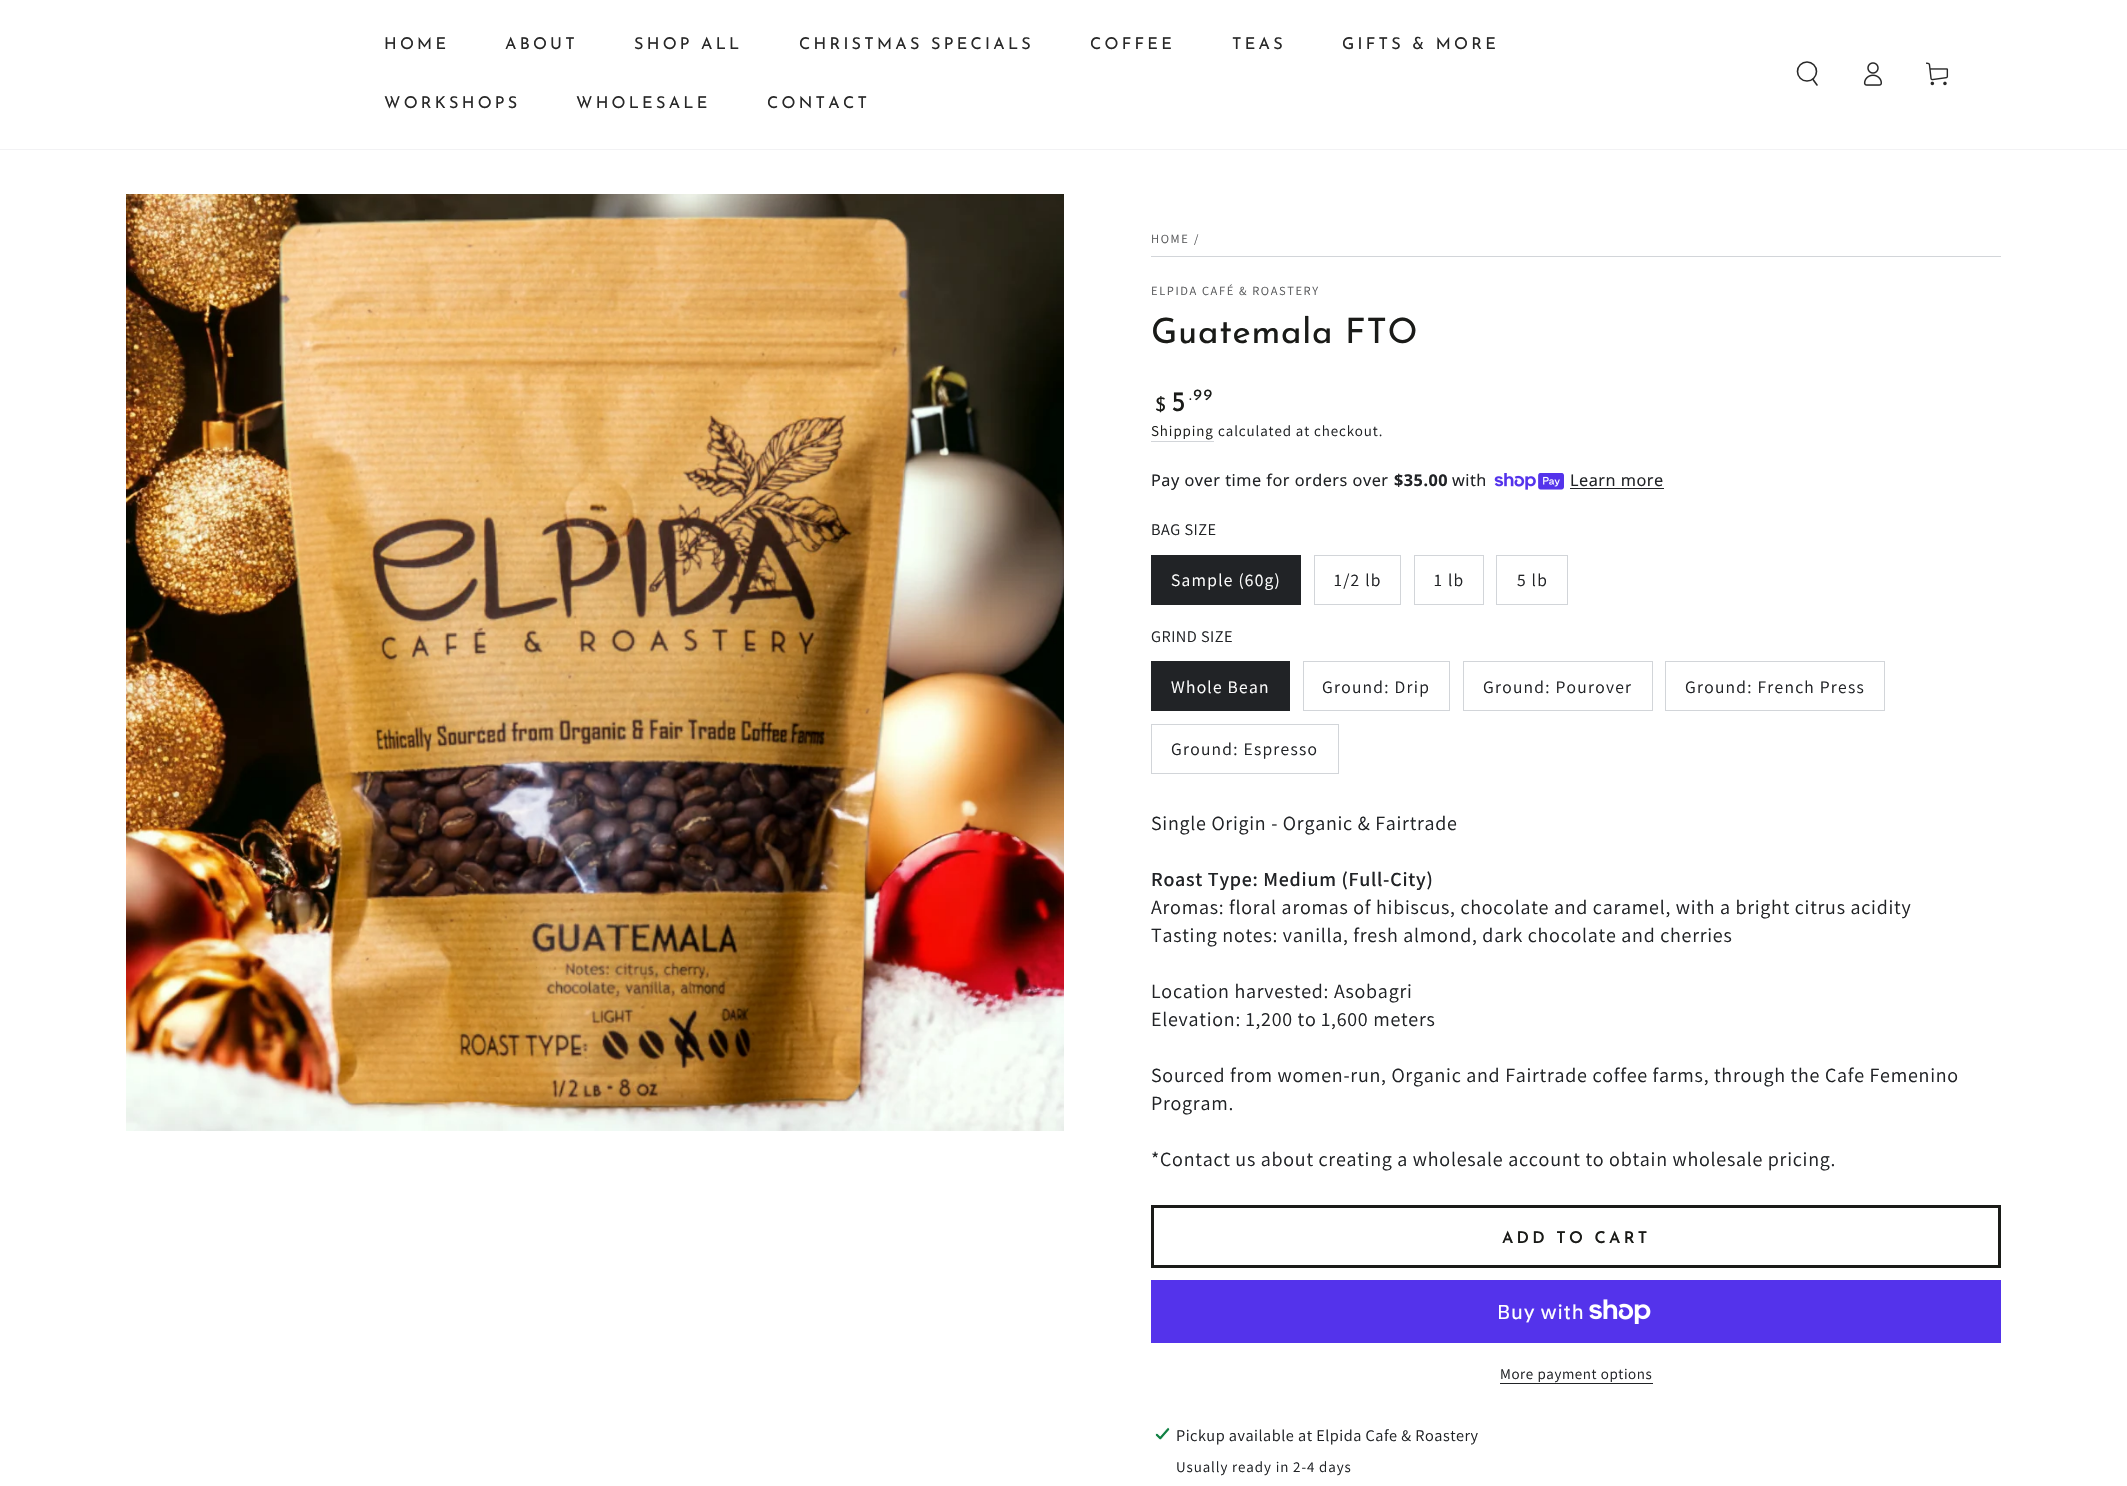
void draw(SkCanvas* canvas) {
    SkPaint paint;
    paint.setAntiAlias(true);
    auto spacedText = [&](const char* s, float x, float y, const SkFont& font, const SkPaint& ink, float letter, float word) {
        std::vector<SkGlyphID> glyphs(font.countText(s, strlen(s), SkTextEncoding::kUTF8));
        std::vector<float> xs(glyphs.size());
        font.textToGlyphs(s, strlen(s), SkTextEncoding::kUTF8, glyphs);
        font.getXPos(glyphs, xs, x);
        float extra = 0;
        for (size_t i = 0; i < glyphs.size(); i++) {
            xs[i] += extra;
            extra += letter + word * (glyphs[i] == font.unicharToGlyph(' '));
        }
        canvas->drawTextBlob(SkTextBlob::MakeFromPosHGlyphs(glyphs, xs, y, font), 0, 0, ink);
    };
    canvas->clear(0xFFFFFFFF);
    paint.setColor(0xFFF2F2F4);
    canvas->drawPath(SkPathBuilder().moveTo(0, 149).lineTo(0, 150).lineTo(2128, 150).lineTo(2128, 1).lineTo(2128, 149).close().detach(), paint);
    SkFont font1(fontMgr->matchFamilyStyle("Josefin Sans", SkFontStyle::Normal()), 16.25f);
    font1.setSubpixel(true);
    paint.setColor(0xFF282828);
    spacedText("HOME", 384, 49, font1, paint, 3.25f, 0);
    spacedText("ABOUT", 505, 49, font1, paint, 3.25f, 0);
    spacedText("SHOP ALL", 634, 49, font1, paint, 3.25f, 0);
    spacedText("CHRISTMAS SPECIALS", 799, 49, font1, paint, 3.25f, 0);
    spacedText("COFFEE", 1090, 49, font1, paint, 3.25f, 0);
    spacedText("TEAS", 1232, 49, font1, paint, 3.25f, 0);
    spacedText("GIFTS & MORE", 1342, 49, font1, paint, 3.25f, 0);
    spacedText("WORKSHOPS", 384, 108, font1, paint, 3.25f, 0);
    spacedText("WHOLESALE", 576, 108, font1, paint, 3.25f, 0);
    spacedText("CONTACT", 767, 108, font1, paint, 3.25f, 0);
    paint.setStyle(SkPaint::kStroke_Style);
    paint.setStrokeWidth(1.6f);
    canvas->drawCircle(1807, 71.5f, 9.5f, paint);
    paint.setStrokeCap(SkPaint::kRound_Cap);
    canvas->drawPath(SkPathBuilder().moveTo(1813, 79.5f).lineTo(1817, 85).detach(), paint);
    canvas->drawImageRect(SkImages::DeferredFromEncodedData(SkData::MakeFromFileName("img1.png")), SkRect::MakeXYWH(1863, 62, 19, 24), SkSamplingOptions());
    canvas->drawImageRect(SkImages::DeferredFromEncodedData(SkData::MakeFromFileName("img2.png")), SkRect::MakeXYWH(1926, 62, 23, 24), SkSamplingOptions());
    canvas->drawImageRect(SkImages::DeferredFromEncodedData(SkData::MakeFromFileName("img3.png")), SkRect::MakeXYWH(126, 194, 938, 937), SkSamplingOptions());
    paint.setStyle(SkPaint::kFill_Style);
    paint.setColor(0xFFD2D5D9);
    canvas->drawRect(SkRect::MakeXYWH(1151, 256, 850, 1), paint);
    SkFont font2(fontMgr->matchFamilyStyle("Assistant", SkFontStyle::Normal()), 12.5f);
    font2.setSubpixel(true);
    paint.setColor(0xFF595A5C);
    spacedText("HOME", 1151, 243, font2, paint, 1.6f, 0);
    spacedText("/", 1194, 243, font2, paint, 1.6f, 0);
    spacedText("ELPIDA CAFÉ & ROASTERY", 1151, 295, font2, paint, 1.6f, 0);
    SkFont font3(fontMgr->matchFamilyStyle("Josefin Sans", SkFontStyle::Normal()), 35);
    font3.setSubpixel(true);
    paint.setColor(0xFF1A1B18);
    spacedText("Guatemala FTO", 1151, 343, font3, paint, 0.75f, 0);
    SkFont font4(fontMgr->matchFamilyStyle("Josefin Sans", SkFontStyle::Normal()), 19);
    font4.setSubpixel(true);
    spacedText("$", 1155, 411, font4, paint, 1.6f, 0);
    SkFont font5(fontMgr->matchFamilyStyle("Josefin Sans", SkFontStyle::Normal()), 28);
    font5.setSubpixel(true);
    spacedText("5", 1171, 411, font5, paint, 1.6f, 0);
    SkFont font6(fontMgr->matchFamilyStyle("Josefin Sans", SkFontStyle::Normal()), 16);
    font6.setSubpixel(true);
    spacedText(".99", 1189, 400, font6, paint, 1.6f, 0);
    SkFont font7(fontMgr->matchFamilyStyle("Assistant", SkFontStyle::Normal()), 15);
    font7.setSubpixel(true);
    spacedText("Shipping", 1151, 436, font7, paint, 0.9f, 0);
    paint.setColor(0xFFD2D5D9);
    canvas->drawRect(SkRect::MakeXYWH(1151, 441, 63, 1), paint);
    paint.setColor(0xFF212326);
    spacedText("calculated at checkout.", 1218, 436, font7, paint, 0.9f, 0);
    SkFont font8(fontMgr->matchFamilyStyle("Noto Sans", SkFontStyle::Normal()), 16.25f);
    font8.setSubpixel(true);
    spacedText("Pay over time for orders over", 1151, 486, font8, paint, 0.5f, 0);
    SkFont font9(fontMgr->matchFamilyStyle("Noto Sans", SkFontStyle::Bold()), 16.25f);
    font9.setSubpixel(true);
    spacedText("$35.00", 1394, 486, font9, paint, 0.5f, 0);
    spacedText("with", 1452, 486, font8, paint, 0.5f, 0);
    canvas->drawImageRect(SkImages::DeferredFromEncodedData(SkData::MakeFromFileName("img4.png")), SkRect::MakeXYWH(1494, 473, 70, 17), SkSamplingOptions());
    spacedText("Learn more", 1570, 486, font8, paint, 0.5f, 0);
    canvas->drawRect(SkRect::MakeXYWH(1570, 488, 94, 1), paint);
    SkFont font10(fontMgr->matchFamilyStyle("Assistant", SkFontStyle::Normal()), 16.25f);
    font10.setSubpixel(true);
    spacedText("BAG SIZE", 1151, 535, font10, paint, 0.5f, 0);
    canvas->drawRect(SkRect::MakeXYWH(1151, 555, 150, 50), paint);
    SkFont font11(fontMgr->matchFamilyStyle("Assistant", SkFontStyle::Normal()), 17.5f);
    font11.setSubpixel(true);
    paint.setColor(0xFFFFFFFF);
    spacedText("Sample (60g)", 1171, 586, font11, paint, 1.25f, 0);
    paint.setStyle(SkPaint::kStroke_Style);
    paint.setStrokeWidth(1);
    paint.setStrokeCap(SkPaint::kButt_Cap);
    paint.setColor(0xFFD2D5D9);
    canvas->drawRect(SkRect::MakeXYWH(1314.5f, 555.5f, 86, 49), paint);
    paint.setStyle(SkPaint::kFill_Style);
    paint.setColor(0xFF212326);
    spacedText("1/2 lb", 1334, 586, font11, paint, 1.25f, 0);
    paint.setStyle(SkPaint::kStroke_Style);
    paint.setColor(0xFFD2D5D9);
    canvas->drawRect(SkRect::MakeXYWH(1414.5f, 555.5f, 69, 49), paint);
    paint.setStyle(SkPaint::kFill_Style);
    paint.setColor(0xFF212326);
    spacedText("1 lb", 1434, 586, font11, paint, 1.25f, 0);
    paint.setStyle(SkPaint::kStroke_Style);
    paint.setColor(0xFFD2D5D9);
    canvas->drawRect(SkRect::MakeXYWH(1496.5f, 555.5f, 71, 49), paint);
    paint.setStyle(SkPaint::kFill_Style);
    paint.setColor(0xFF212326);
    spacedText("5 lb", 1517, 586, font11, paint, 1.25f, 0);
    spacedText("GRIND SIZE", 1151, 642, font10, paint, 0.5f, 0);
    canvas->drawRect(SkRect::MakeXYWH(1151, 661, 139, 50), paint);
    paint.setColor(0xFFFFFFFF);
    spacedText("Whole Bean", 1171, 693, font11, paint, 1.25f, 0);
    paint.setStyle(SkPaint::kStroke_Style);
    paint.setColor(0xFFD2D5D9);
    canvas->drawRect(SkRect::MakeXYWH(1303.5f, 661.5f, 146, 49), paint);
    paint.setStyle(SkPaint::kFill_Style);
    paint.setColor(0xFF212326);
    spacedText("Ground: Drip", 1322, 693, font11, paint, 1.25f, 0);
    paint.setStyle(SkPaint::kStroke_Style);
    paint.setColor(0xFFD2D5D9);
    canvas->drawRect(SkRect::MakeXYWH(1463.5f, 661.5f, 189, 49), paint);
    paint.setStyle(SkPaint::kFill_Style);
    paint.setColor(0xFF212326);
    spacedText("Ground: Pourover", 1483, 693, font11, paint, 1.25f, 0);
    paint.setStyle(SkPaint::kStroke_Style);
    paint.setColor(0xFFD2D5D9);
    canvas->drawRect(SkRect::MakeXYWH(1665.5f, 661.5f, 219, 49), paint);
    paint.setStyle(SkPaint::kFill_Style);
    paint.setColor(0xFF212326);
    spacedText("Ground: French Press", 1685, 693, font11, paint, 1.25f, 0);
    paint.setStyle(SkPaint::kStroke_Style);
    paint.setColor(0xFFD2D5D9);
    canvas->drawRect(SkRect::MakeXYWH(1151.5f, 724.5f, 187, 49), paint);
    paint.setStyle(SkPaint::kFill_Style);
    paint.setColor(0xFF212326);
    spacedText("Ground: Espresso", 1171, 755, font11, paint, 1.25f, 0);
    SkFont font12(fontMgr->matchFamilyStyle("Assistant", SkFontStyle::Normal()), 20);
    font12.setSubpixel(true);
    spacedText("Single Origin - Organic & Fairtrade", 1151, 830, font12, paint, 0.75f, 0);
    SkFont font13(fontMgr->matchFamilyStyle("Assistant", SkFontStyle(600, SkFontStyle::kNormal_Width, SkFontStyle::kUpright_Slant)), 20);
    font13.setSubpixel(true);
    spacedText("Roast Type: Medium (Full-City)", 1151, 886, font13, paint, 0.75f, 0);
    spacedText("Aromas: floral aromas of hibiscus, chocolate and caramel, with a bright citrus acidity", 1151, 914, font12, paint, 0.75f, 0);
    spacedText("Tasting notes: vanilla, fresh almond, dark chocolate and cherries", 1151, 942, font12, paint, 0.75f, 0);
    spacedText("Location harvested: Asobagri", 1151, 998, font12, paint, 0.75f, 0);
    spacedText("Elevation: 1,200 to 1,600 meters", 1151, 1026, font12, paint, 0.75f, 0);
    spacedText("Sourced from women-run, Organic and Fairtrade coffee farms, through the Cafe Femenino", 1151, 1082, font12, paint, 0.75f, 0);
    spacedText("Program.", 1151, 1110, font12, paint, 0.75f, 0);
    spacedText("*Contact us about creating a wholesale account to obtain wholesale pricing.", 1151, 1166, font12, paint, 0.75f, 0);
    paint.setStyle(SkPaint::kStroke_Style);
    paint.setStrokeWidth(3);
    paint.setColor(0xFF1A1B18);
    canvas->drawRect(SkRect::MakeXYWH(1152.5f, 1206.5f, 847, 60), paint);
    SkFont font14(fontMgr->matchFamilyStyle("Josefin Sans", SkFontStyle(600, SkFontStyle::kNormal_Width, SkFontStyle::kUpright_Slant)), 16.25f);
    font14.setSubpixel(true);
    paint.setStyle(SkPaint::kFill_Style);
    spacedText("ADD TO CART", 1502, 1243, font14, paint, 3.25f, 0);
    paint.setColor(0xFF5433EB);
    canvas->drawRect(SkRect::MakeXYWH(1151, 1280, 850, 63), paint);
    SkFont font15(fontMgr->matchFamilyStyle("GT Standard", SkFontStyle::Normal()), 20);
    font15.setSubpixel(true);
    paint.setColor(0xFFFFFFFF);
    spacedText("Buy with", 1497, 1319, font15, paint, 0.75f, 0);
    canvas->drawImageRect(SkImages::DeferredFromEncodedData(SkData::MakeFromFileName("img5.png")), SkRect::MakeXYWH(1589, 1299, 62, 25), SkSamplingOptions());
    paint.setColor(0xFF212326);
    spacedText("More payment options", 1500, 1379, font7, paint, 0.6f, 0);
    canvas->drawRect(SkRect::MakeXYWH(1500, 1383, 153, 1), paint);
    canvas->drawImageRect(SkImages::DeferredFromEncodedData(SkData::MakeFromFileName("img6.png")), SkRect::MakeXYWH(1155, 1427, 15, 13), SkSamplingOptions());
    spacedText("Pickup available at Elpida Cafe & Roastery", 1176, 1441, font10, paint, 0.5f, 0);
    spacedText("Usually ready in 2-4 days", 1176, 1472, font7, paint, 0.9f, 0);
}
